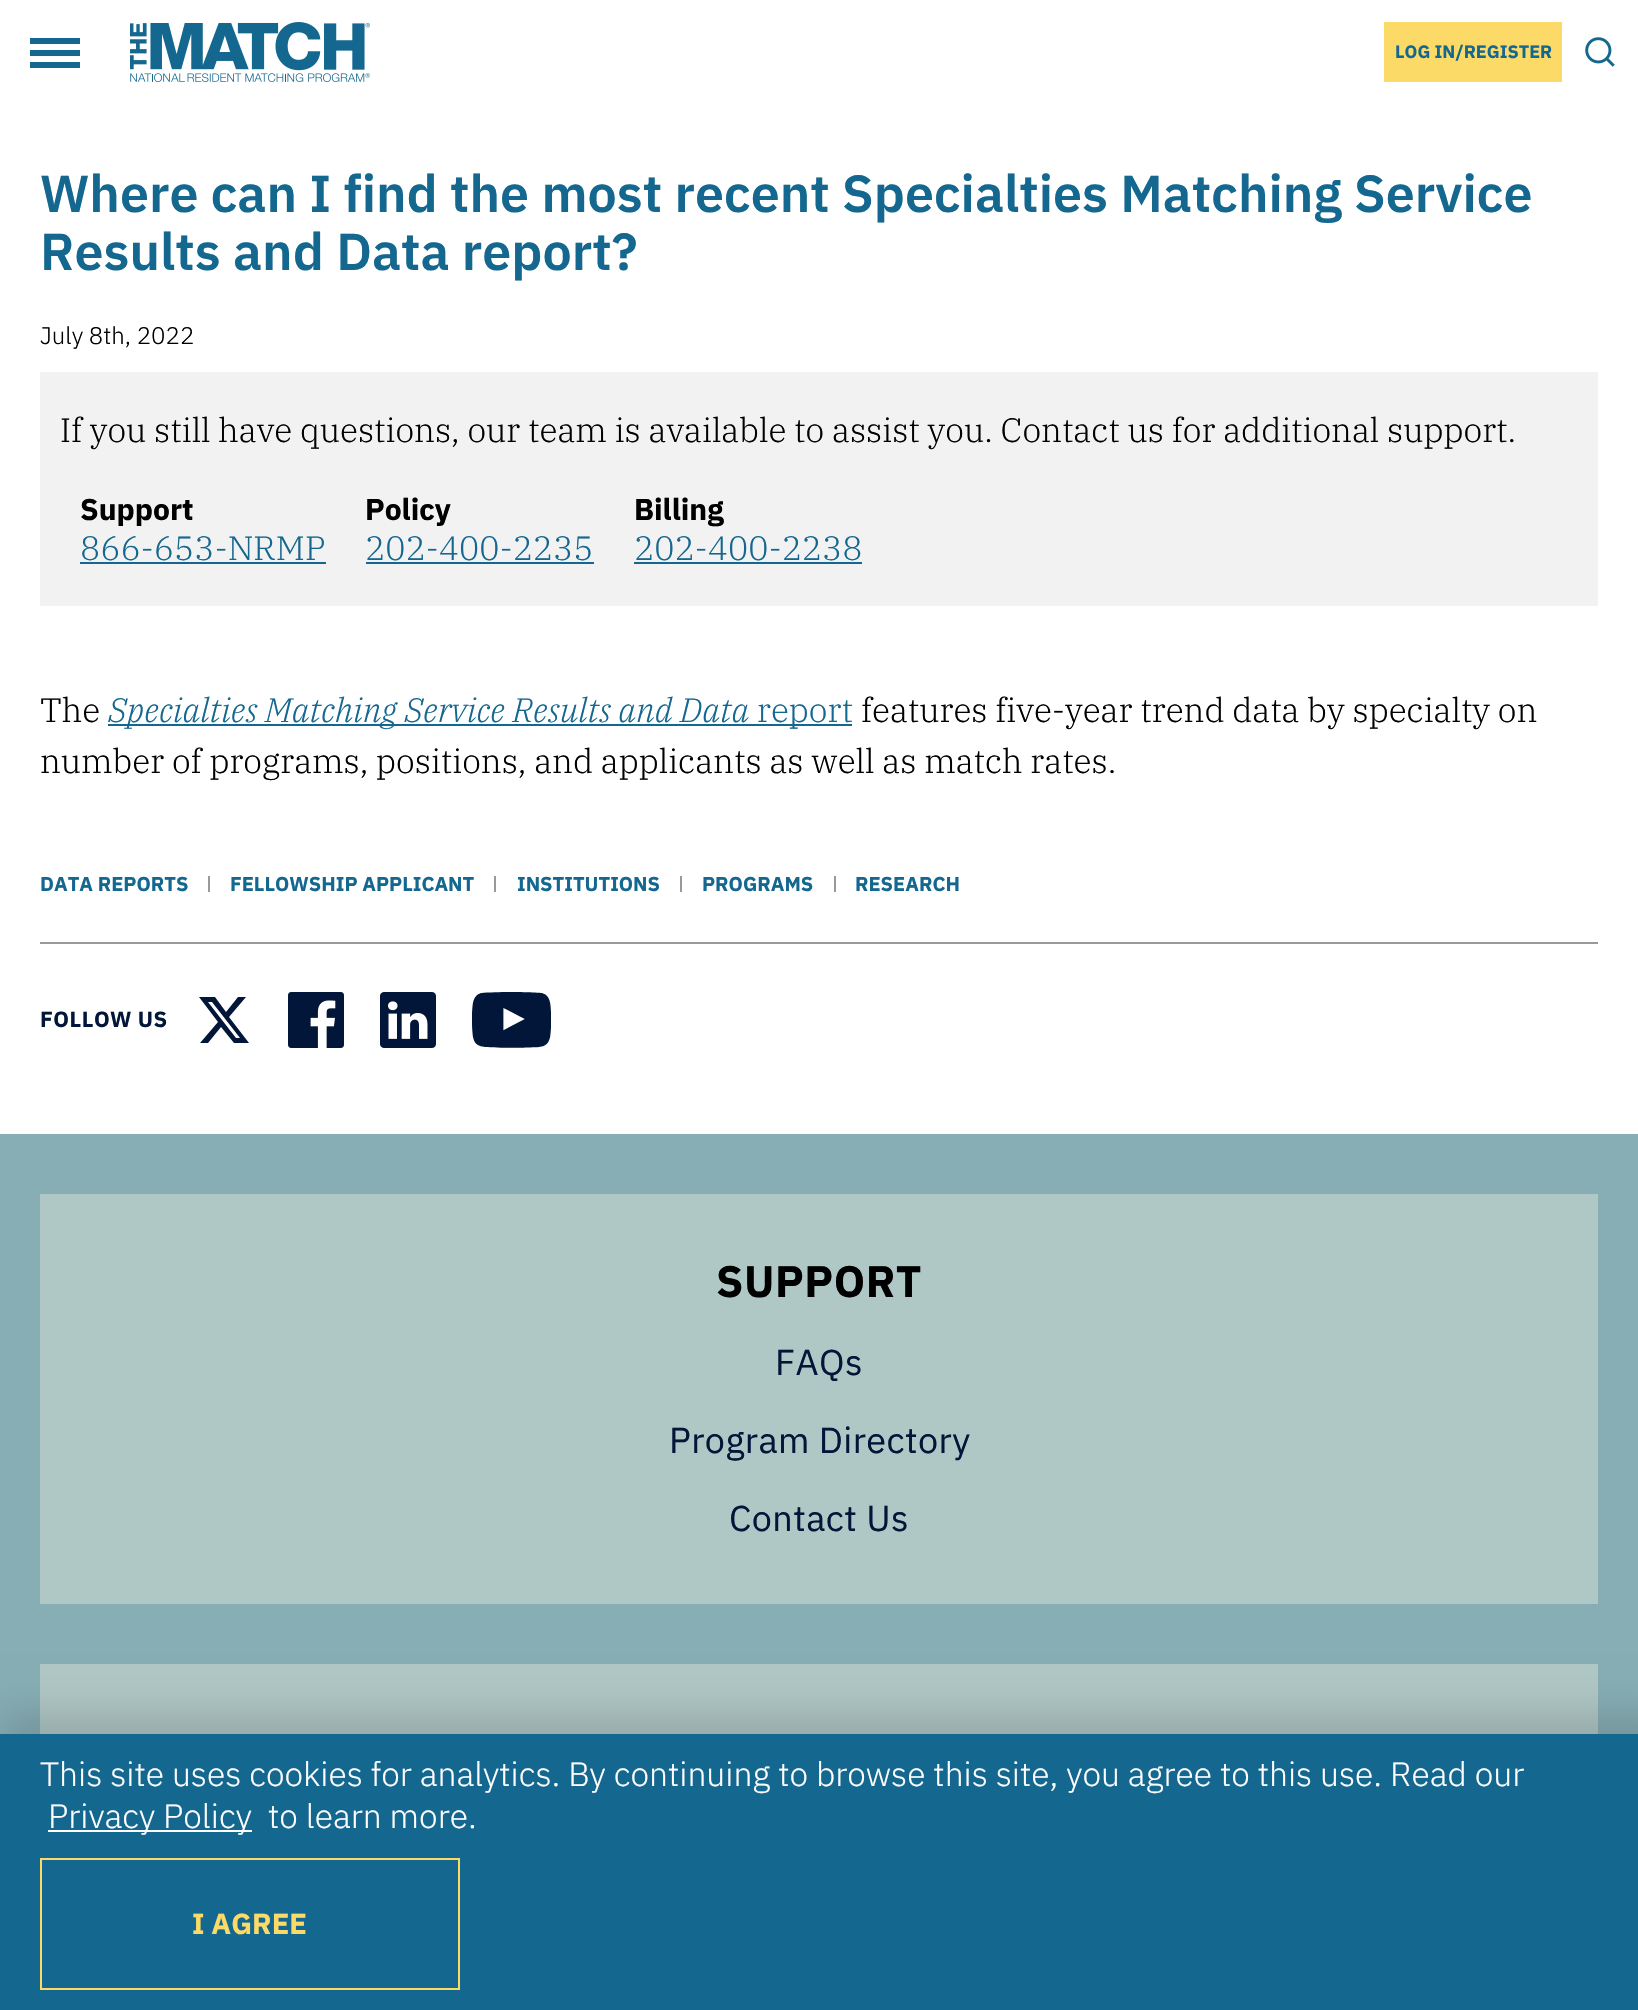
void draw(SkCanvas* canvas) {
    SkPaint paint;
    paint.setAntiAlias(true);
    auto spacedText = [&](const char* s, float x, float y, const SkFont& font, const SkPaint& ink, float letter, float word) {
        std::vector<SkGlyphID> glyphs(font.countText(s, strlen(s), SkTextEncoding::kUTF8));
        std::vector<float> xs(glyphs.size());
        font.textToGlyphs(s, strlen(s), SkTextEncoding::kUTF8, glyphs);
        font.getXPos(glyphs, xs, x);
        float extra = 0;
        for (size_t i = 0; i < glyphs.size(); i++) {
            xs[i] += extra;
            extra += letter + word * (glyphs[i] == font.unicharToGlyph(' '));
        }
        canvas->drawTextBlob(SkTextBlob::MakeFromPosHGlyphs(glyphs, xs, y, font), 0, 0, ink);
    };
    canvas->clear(0xFFFFFFFF);
    paint.setColor(0xFF14678F);
    canvas->drawRect(SkRect::MakeXYWH(30, 50, 50, 6), paint);
    canvas->drawRect(SkRect::MakeXYWH(30, 38, 50, 6), paint);
    canvas->drawRect(SkRect::MakeXYWH(30, 62, 50, 6), paint);
    canvas->drawImageRect(SkImages::DeferredFromEncodedData(SkData::MakeFromFileName("img1.png")), SkRect::MakeXYWH(130, 22, 240, 60), SkSamplingOptions());
    paint.setColor(0xFFFBDA68);
    canvas->drawRect(SkRect::MakeXYWH(1384, 22, 178, 60), paint);
    SkFont font1(fontMgr->matchFamilyStyle("IBM Plex Sans", SkFontStyle::Bold()), 18);
    font1.setSubpixel(true);
    paint.setColor(0xFF14678F);
    canvas->drawString("LOG IN/REGISTER", 1395, 58, font1, paint);
    canvas->drawImageRect(SkImages::DeferredFromEncodedData(SkData::MakeFromFileName("img2.png")), SkRect::MakeXYWH(1585, 37, 30, 30), SkSamplingOptions());
    SkFont font2(fontMgr->matchFamilyStyle("IBM Plex Sans", SkFontStyle(600, SkFontStyle::kNormal_Width, SkFontStyle::kUpright_Slant)), 52);
    font2.setSubpixel(true);
    canvas->drawString("Where can I find the most recent Specialties Matching Service", 40, 212, font2, paint);
    canvas->drawString("Results and Data report?", 40, 270, font2, paint);
    SkFont font3(fontMgr->matchFamilyStyle("IBM Plex Sans", SkFontStyle(300, SkFontStyle::kNormal_Width, SkFontStyle::kUpright_Slant)), 24);
    font3.setSubpixel(true);
    paint.setColor(0xFF000000);
    canvas->drawString("July 8th, 2022", 40, 344, font3, paint);
    paint.setColor(0xFFF2F2F2);
    canvas->drawRect(SkRect::MakeXYWH(40, 372, 1558, 234), paint);
    SkFont font4(fontMgr->matchFamilyStyle("IBM Plex Serif", SkFontStyle(300, SkFontStyle::kNormal_Width, SkFontStyle::kUpright_Slant)), 33.65f);
    font4.setSubpixel(true);
    paint.setColor(0xFF000000);
    canvas->drawString("If you still have questions, our team is available to assist you. Contact us for additional support.", 60, 442, font4, paint);
    SkFont font5(fontMgr->matchFamilyStyle("IBM Plex Sans", SkFontStyle::Bold()), 30);
    font5.setSubpixel(true);
    canvas->drawString("Support", 80, 520, font5, paint);
    paint.setColor(0xFF14678F);
    canvas->drawString("866-653-NRMP", 80, 560, font4, paint);
    canvas->drawRect(SkRect::MakeXYWH(80, 562, 246, 2), paint);
    paint.setColor(0xFF000000);
    canvas->drawString("Policy", 365, 520, font5, paint);
    paint.setColor(0xFF14678F);
    canvas->drawString("202-400-2235", 365, 560, font4, paint);
    canvas->drawRect(SkRect::MakeXYWH(366, 562, 228, 2), paint);
    paint.setColor(0xFF000000);
    canvas->drawString("Billing", 634, 520, font5, paint);
    paint.setColor(0xFF14678F);
    canvas->drawString("202-400-2238", 634, 560, font4, paint);
    canvas->drawRect(SkRect::MakeXYWH(634, 562, 228, 2), paint);
    paint.setColor(0xFF000000);
    canvas->drawString("The", 40, 722, font4, paint);
    paint.setColor(0xFF14678F);
    canvas->drawRect(SkRect::MakeXYWH(108, 724, 744, 2), paint);
    SkFont font6(fontMgr->matchFamilyStyle("IBM Plex Serif", SkFontStyle(300, SkFontStyle::kNormal_Width, SkFontStyle::kItalic_Slant)), 33.65f);
    font6.setSubpixel(true);
    canvas->drawString("Specialties Matching Service Results and Data", 108, 722, font6, paint);
    canvas->drawString("report", 757, 722, font4, paint);
    paint.setColor(0xFF000000);
    canvas->drawString("features five-year trend data by specialty on", 861, 722, font4, paint);
    canvas->drawString("number of programs, positions, and applicants as well as match rates.", 40, 773, font4, paint);
    SkFont font7(fontMgr->matchFamilyStyle("IBM Plex Sans", SkFontStyle::Bold()), 20);
    font7.setSubpixel(true);
    paint.setColor(0xFF14678F);
    canvas->drawString("DATA REPORTS", 40, 891, font7, paint);
    paint.setColor(0xFF999999);
    canvas->drawRect(SkRect::MakeXYWH(208, 876, 2, 16), paint);
    paint.setColor(0xFF14678F);
    canvas->drawString("FELLOWSHIP APPLICANT", 230, 891, font7, paint);
    paint.setColor(0xFF999999);
    canvas->drawRect(SkRect::MakeXYWH(494, 876, 2, 16), paint);
    paint.setColor(0xFF14678F);
    canvas->drawString("INSTITUTIONS", 517, 891, font7, paint);
    paint.setColor(0xFF999999);
    canvas->drawRect(SkRect::MakeXYWH(680, 876, 2, 16), paint);
    paint.setColor(0xFF14678F);
    canvas->drawString("PROGRAMS", 702, 891, font7, paint);
    paint.setColor(0xFF999999);
    canvas->drawRect(SkRect::MakeXYWH(834, 876, 2, 16), paint);
    paint.setColor(0xFF14678F);
    canvas->drawString("RESEARCH", 855, 891, font7, paint);
    paint.setColor(0xFF999999);
    canvas->drawRect(SkRect::MakeXYWH(40, 942, 1558, 2), paint);
    SkFont font8(fontMgr->matchFamilyStyle("IBM Plex Sans", SkFontStyle::Bold()), 22);
    font8.setSubpixel(true);
    paint.setColor(0xFF011638);
    spacedText("FOLLOW US", 40, 1027, font8, paint, 0.5f, 0);
    canvas->drawPath(SkPathBuilder().moveTo(238, 997).lineTo(246, 997).lineTo(229, 1017).lineTo(249, 1043).lineTo(234, 1043).lineTo(221, 1027).lineTo(208, 1043).lineTo(200, 1043).lineTo(218, 1022).lineTo(199, 997).lineTo(215, 997).lineTo(226, 1012).close().moveTo(236, 1038).lineTo(240, 1038).lineTo(212, 1002).lineTo(208, 1002).close().detach(), paint);
    canvas->drawImageRect(SkImages::DeferredFromEncodedData(SkData::MakeFromFileName("img3.png")), SkRect::MakeXYWH(288, 992, 56, 56), SkSamplingOptions());
    canvas->drawImageRect(SkImages::DeferredFromEncodedData(SkData::MakeFromFileName("img4.png")), SkRect::MakeXYWH(380, 992, 56, 56), SkSamplingOptions());
    canvas->drawImageRect(SkImages::DeferredFromEncodedData(SkData::MakeFromFileName("img5.png")), SkRect::MakeXYWH(472, 992, 79, 56), SkSamplingOptions());
    paint.setColor(0xFF87AEB5);
    canvas->drawRect(SkRect::MakeXYWH(0, 1134, 1638, 600), paint);
    paint.setColor(0xFFAFC7C5);
    canvas->drawRect(SkRect::MakeXYWH(40, 1194, 1558, 410), paint);
    SkFont font9(fontMgr->matchFamilyStyle("IBM Plex Sans", SkFontStyle::Bold()), 44);
    font9.setSubpixel(true);
    paint.setColor(0xFF000000);
    spacedText("SUPPORT", 716, 1297, font9, paint, 0.5f, 0);
    SkFont font10(fontMgr->matchFamilyStyle("IBM Plex Sans", SkFontStyle::Normal()), 36);
    font10.setSubpixel(true);
    paint.setColor(0xFF011638);
    spacedText("FAQs", 775, 1375, font10, paint, 0.4f, 0);
    spacedText("Program Directory", 669, 1453, font10, paint, 0.4f, 0);
    spacedText("Contact Us", 729, 1531, font10, paint, 0.4f, 0);
    paint.setColor(0xFFAFC7C5);
    canvas->drawRect(SkRect::MakeXYWH(40, 1664, 1558, 70), paint);
    paint.setColor(0x26000000);
    paint.setMaskFilter(SkMaskFilter::MakeBlur(kNormal_SkBlurStyle, 20));
    canvas->drawRect(SkRect::MakeXYWH(0, 1714, 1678, 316), paint);
    paint.setMaskFilter(nullptr);
    paint.setColor(0xFF14678F);
    canvas->drawRect(SkRect::MakeXYWH(0, 1734, 1638, 276), paint);
    SkFont font11(fontMgr->matchFamilyStyle("IBM Plex Sans", SkFontStyle(300, SkFontStyle::kNormal_Width, SkFontStyle::kUpright_Slant)), 33.65f);
    font11.setSubpixel(true);
    paint.setColor(0xFFFFFFFF);
    canvas->drawString("This site uses cookies for analytics. By continuing to browse this site, you agree to this use. Read our", 40, 1786, font11, paint);
    canvas->drawRect(SkRect::MakeXYWH(48, 1830, 204, 2), paint);
    canvas->drawString("Privacy Policy", 48, 1828, font11, paint);
    canvas->drawString("to learn more.", 268, 1828, font11, paint);
    paint.setStyle(SkPaint::kStroke_Style);
    paint.setStrokeWidth(2);
    paint.setColor(0xFFFBDA68);
    canvas->drawRect(SkRect::MakeXYWH(41, 1859, 418, 130), paint);
    SkFont font12(fontMgr->matchFamilyStyle("IBM Plex Sans", SkFontStyle::Bold()), 29);
    font12.setSubpixel(true);
    paint.setStyle(SkPaint::kFill_Style);
    canvas->drawString("I AGREE", 192, 1934, font12, paint);
}
